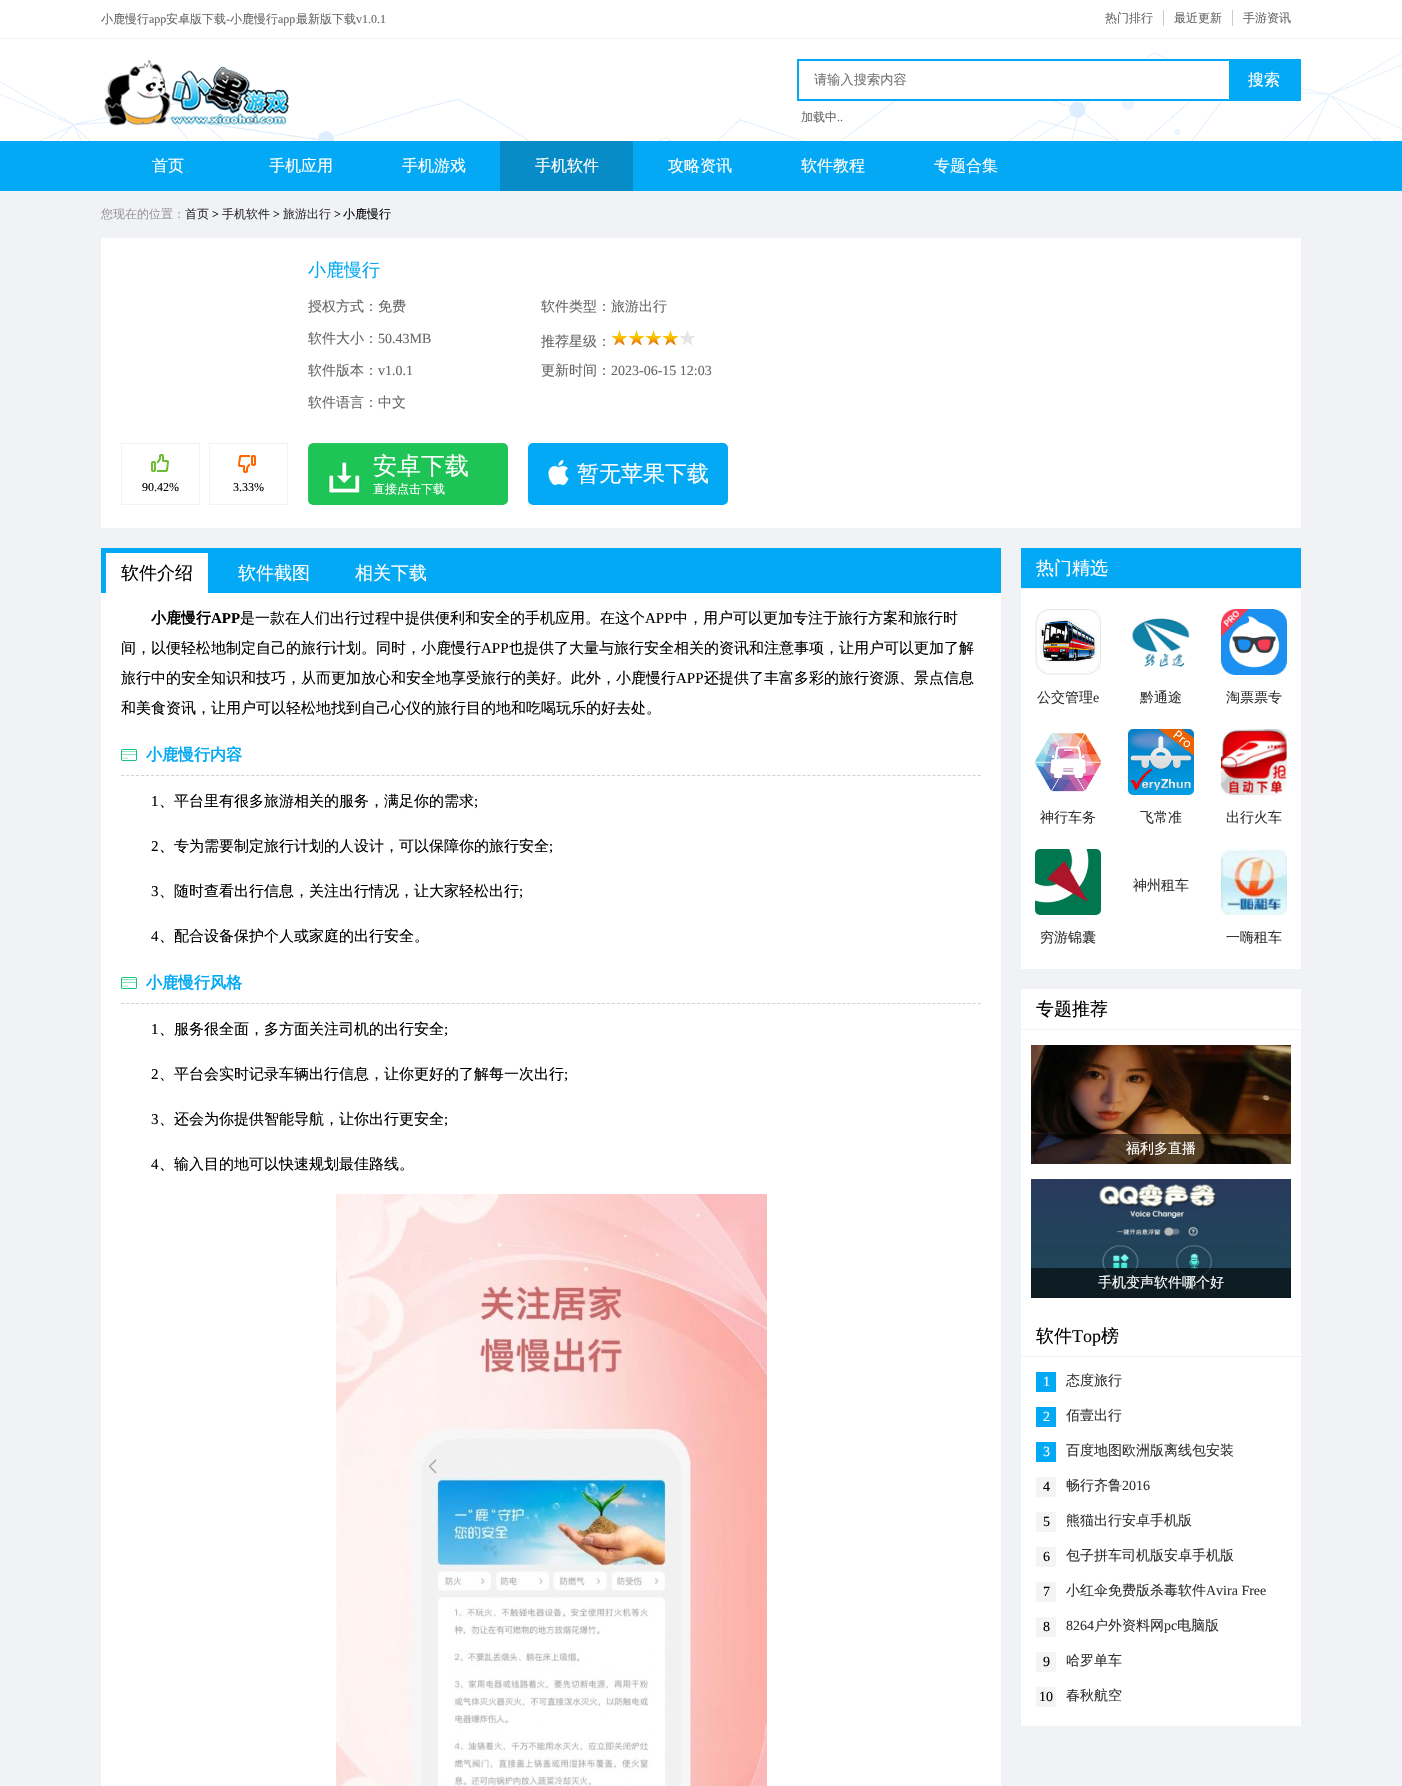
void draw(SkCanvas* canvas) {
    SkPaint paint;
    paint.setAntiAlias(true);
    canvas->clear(0xFFF1F2F6);
    paint.setColor(0xFFFFFFFF);
    canvas->drawRect(SkRect::MakeXYWH(0, 0, 1402, 38), paint);
    SkFont font1(fontMgr->matchFamilyStyle("WenQuanYi Zen Hei", SkFontStyle(500, SkFontStyle::kNormal_Width, SkFontStyle::kUpright_Slant)), 12);
    font1.setSubpixel(true);
    paint.setColor(0xFF666666);
    canvas->drawString("小鹿慢行", 101, 23, font1, paint);
    SkFont font2(fontMgr->matchFamilyStyle("Liberation Serif", SkFontStyle::Normal()), 12);
    font2.setSubpixel(true);
    canvas->drawString("app", 149, 23, font2, paint);
    canvas->drawString("安卓版下载", 166, 23, font1, paint);
    canvas->drawString("-", 226, 23, font2, paint);
    canvas->drawString("小鹿慢行", 230, 23, font1, paint);
    canvas->drawString("app", 278, 23, font2, paint);
    canvas->drawString("最新版下载", 296, 23, font1, paint);
    canvas->drawString("v1.0.1", 356, 23, font2, paint);
    paint.setColor(0xFFCCCCCC);
    canvas->drawRect(SkRect::MakeXYWH(1163, 10, 1, 16), paint);
    paint.setColor(0xFF666666);
    canvas->drawString("热门排行", 1105, 22, font1, paint);
    paint.setColor(0xFFCCCCCC);
    canvas->drawRect(SkRect::MakeXYWH(1232, 10, 1, 16), paint);
    paint.setColor(0xFF666666);
    canvas->drawString("最近更新", 1174, 22, font1, paint);
    canvas->drawString("手游资讯", 1243, 22, font1, paint);
    canvas->drawImageRect(SkImages::DeferredFromEncodedData(SkData::MakeFromFileName("img1.png")), SkRect::MakeXYWH(0, 39, 1402, 102), SkSamplingOptions());
    canvas->drawImageRect(SkImages::DeferredFromEncodedData(SkData::MakeFromFileName("img2.png")), SkRect::MakeXYWH(104, 59, 185, 67), SkSamplingOptions());
    paint.setColor(0xFFFFFFFF);
    canvas->drawRect(SkRect::MakeXYWH(897, 61, 332, 38), paint);
    paint.setStyle(SkPaint::kStroke_Style);
    paint.setStrokeWidth(2);
    paint.setColor(0xFF03A9F4);
    canvas->drawRect(SkRect::MakeXYWH(798, 60, 502, 40), paint);
    SkFont font3(fontMgr->matchFamilyStyle("WenQuanYi Zen Hei", SkFontStyle(500, SkFontStyle::kNormal_Width, SkFontStyle::kUpright_Slant)), 13.25f);
    font3.setSubpixel(true);
    paint.setStyle(SkPaint::kFill_Style);
    paint.setColor(0xFF757575);
    canvas->drawString("请输入搜索内容", 814, 84, font3, paint);
    paint.setColor(0xFF03A9F4);
    canvas->drawRect(SkRect::MakeXYWH(1229, 61, 70, 38), paint);
    SkFont font4(fontMgr->matchFamilyStyle("WenQuanYi Zen Hei", SkFontStyle(500, SkFontStyle::kNormal_Width, SkFontStyle::kUpright_Slant)), 16);
    font4.setSubpixel(true);
    paint.setColor(0xFFFFFFFF);
    canvas->drawString("搜索", 1248, 85, font4, paint);
    paint.setColor(0xFF666666);
    canvas->drawString("加载中", 801, 121, font1, paint);
    canvas->drawString("..", 837, 121, font2, paint);
    paint.setColor(0xFF03A9F4);
    canvas->drawRect(SkRect::MakeXYWH(0, 141, 1402, 50), paint);
    paint.setColor(0xFFFFFFFF);
    canvas->drawString("首页", 152, 171, font4, paint);
    canvas->drawString("手机应用", 269, 171, font4, paint);
    canvas->drawString("手机游戏", 402, 171, font4, paint);
    paint.setColor(0xFF078CC8);
    canvas->drawRect(SkRect::MakeXYWH(500, 141, 133, 50), paint);
    paint.setColor(0xFFFFFFFF);
    canvas->drawString("手机软件", 535, 171, font4, paint);
    canvas->drawString("攻略资讯", 668, 171, font4, paint);
    canvas->drawString("软件教程", 801, 171, font4, paint);
    canvas->drawString("专题合集", 934, 171, font4, paint);
    paint.setColor(0xFF999999);
    canvas->drawString("您现在的位置：", 101, 218, font1, paint);
    paint.setColor(0xFF333333);
    canvas->drawString("首页", 185, 218, font1, paint);
    paint.setColor(0xFF000000);
    canvas->drawString(">", 212, 218, font2, paint);
    paint.setColor(0xFF333333);
    canvas->drawString("手机软件", 222, 218, font1, paint);
    paint.setColor(0xFF000000);
    canvas->drawString(">", 273, 218, font2, paint);
    paint.setColor(0xFF333333);
    canvas->drawString("旅游出行", 283, 218, font1, paint);
    paint.setColor(0xFF000000);
    canvas->drawString(">", 334, 218, font2, paint);
    canvas->drawString("小鹿慢行", 343, 218, font1, paint);
    paint.setColor(0xFFFFFFFF);
    canvas->drawRect(SkRect::MakeXYWH(101, 238, 1200, 290), paint);
    canvas->drawImageRect(SkImages::DeferredFromEncodedData(SkData::MakeFromFileName("img3.png")), SkRect::MakeXYWH(151, 454, 18, 18), SkSamplingOptions());
    paint.setStyle(SkPaint::kStroke_Style);
    paint.setStrokeWidth(1);
    paint.setColor(0xFFF1F2F6);
    canvas->drawRect(SkRect::MakeXYWH(121.5f, 443.5f, 78, 61), paint);
    paint.setStyle(SkPaint::kFill_Style);
    paint.setColor(0xFF000000);
    canvas->drawString("90.42%", 142, 491, font2, paint);
    canvas->drawImageRect(SkImages::DeferredFromEncodedData(SkData::MakeFromFileName("img4.png")), SkRect::MakeXYWH(238, 455, 18, 18), SkSamplingOptions());
    paint.setStyle(SkPaint::kStroke_Style);
    paint.setColor(0xFFF1F2F6);
    canvas->drawRect(SkRect::MakeXYWH(209.5f, 443.5f, 78, 61), paint);
    paint.setStyle(SkPaint::kFill_Style);
    paint.setColor(0xFF000000);
    canvas->drawString("3.33%", 233, 491, font2, paint);
    SkFont font5(fontMgr->matchFamilyStyle("WenQuanYi Zen Hei", SkFontStyle(500, SkFontStyle::kNormal_Width, SkFontStyle::kUpright_Slant)), 18);
    font5.setSubpixel(true);
    paint.setColor(0xFF03A9F4);
    canvas->drawString("小鹿慢行", 308, 276, font5, paint);
    SkFont font6(fontMgr->matchFamilyStyle("WenQuanYi Zen Hei", SkFontStyle(500, SkFontStyle::kNormal_Width, SkFontStyle::kUpright_Slant)), 14);
    font6.setSubpixel(true);
    paint.setColor(0xFF666666);
    canvas->drawString("授权方式：免费", 308, 311, font6, paint);
    canvas->drawString("软件类型：旅游出行", 541, 311, font6, paint);
    canvas->drawString("软件大小：", 308, 343, font6, paint);
    SkFont font7(fontMgr->matchFamilyStyle("Liberation Serif", SkFontStyle::Normal()), 14);
    font7.setSubpixel(true);
    canvas->drawString("50.43MB", 378, 343, font7, paint);
    canvas->drawString("推荐星级：", 541, 346, font6, paint);
    canvas->drawImageRect(SkImages::DeferredFromEncodedData(SkData::MakeFromFileName("img5.png")), SkRect::MakeXYWH(611, 330, 84, 16), SkSamplingOptions());
    canvas->drawString("软件版本：", 308, 375, font6, paint);
    canvas->drawString("v1.0.1", 378, 375, font7, paint);
    canvas->drawString("更新时间：", 541, 375, font6, paint);
    canvas->drawString("2023-06-15 12:03", 611, 375, font7, paint);
    canvas->drawString("软件语言：中文", 308, 407, font6, paint);
    paint.setColor(0xFFCCCCCC);
    canvas->drawRoundRect(SkRect::MakeXYWH(308, 443, 200, 62), 5, 5, paint);
    canvas->drawImageRect(SkImages::DeferredFromEncodedData(SkData::MakeFromFileName("img6.png")), SkRect::MakeXYWH(308, 443, 200, 62), SkSamplingOptions());
    SkFont font8(fontMgr->matchFamilyStyle("WenQuanYi Zen Hei", SkFontStyle(500, SkFontStyle::kNormal_Width, SkFontStyle::kUpright_Slant)), 24);
    font8.setSubpixel(true);
    paint.setColor(0xFFFFFFFF);
    canvas->drawString("安卓下载", 373, 474, font8, paint);
    canvas->drawString("直接点击下载", 373, 493, font1, paint);
    paint.setColor(0xFF03A9F4);
    canvas->drawRoundRect(SkRect::MakeXYWH(528, 443, 200, 62), 5, 5, paint);
    canvas->drawImageRect(SkImages::DeferredFromEncodedData(SkData::MakeFromFileName("img7.png")), SkRect::MakeXYWH(548, 460, 21, 25), SkSamplingOptions());
    SkFont font9(fontMgr->matchFamilyStyle("WenQuanYi Zen Hei", SkFontStyle(500, SkFontStyle::kNormal_Width, SkFontStyle::kUpright_Slant)), 22);
    font9.setSubpixel(true);
    paint.setColor(0xFFFFFFFF);
    canvas->drawString("暂无苹果下载", 577, 481, font9, paint);
    canvas->drawRect(SkRect::MakeXYWH(101, 593, 900, 1193), paint);
    paint.setColor(0xFF03A9F4);
    canvas->drawRect(SkRect::MakeXYWH(101, 548, 900, 45), paint);
    paint.setColor(0xFFFFFFFF);
    canvas->drawRect(SkRect::MakeXYWH(106, 553, 102, 40), paint);
    paint.setColor(0xFF000000);
    canvas->drawString("软件介绍", 121, 579, font5, paint);
    paint.setColor(0xFFFFFFFF);
    canvas->drawString("软件截图", 238, 579, font5, paint);
    canvas->drawString("相关下载", 355, 579, font5, paint);
    SkFont font10(fontMgr->matchFamilyStyle("WenQuanYi Zen Hei", SkFontStyle::Bold()), 15);
    font10.setSubpixel(true);
    paint.setColor(0xFF000000);
    canvas->drawString("小鹿慢行", 151, 623, font10, paint);
    SkFont font11(fontMgr->matchFamilyStyle("Liberation Serif", SkFontStyle::Bold()), 15);
    font11.setSubpixel(true);
    canvas->drawString("APP", 211, 623, font11, paint);
    SkFont font12(fontMgr->matchFamilyStyle("WenQuanYi Zen Hei", SkFontStyle(500, SkFontStyle::kNormal_Width, SkFontStyle::kUpright_Slant)), 15);
    font12.setSubpixel(true);
    canvas->drawString("是一款在人们出行过程中提供便利和安全的手机应用。在这个", 240, 623, font12, paint);
    SkFont font13(fontMgr->matchFamilyStyle("Liberation Serif", SkFontStyle::Normal()), 15);
    font13.setSubpixel(true);
    canvas->drawString("APP", 645, 623, font13, paint);
    canvas->drawString("中，用户可以更加专注于旅行方案和旅行时", 673, 623, font12, paint);
    canvas->drawString("间，以便轻松地制定自己的旅行计划。同时，小鹿慢行", 121, 653, font12, paint);
    canvas->drawString("APP", 481, 653, font13, paint);
    canvas->drawString("也提供了大量与旅行安全相关的资讯和注意事项，让用户可以更加了解", 509, 653, font12, paint);
    canvas->drawString("旅行中的安全知识和技巧，从而更加放心和安全地享受旅行的美好。此外，小鹿慢行", 121, 683, font12, paint);
    canvas->drawString("APP", 676, 683, font13, paint);
    canvas->drawString("还提供了丰富多彩的旅行资源、景点信息", 704, 683, font12, paint);
    canvas->drawString("和美食资讯，让用户可以轻松地找到自己心仪的旅行目的地和吃喝玩乐的好去处。", 121, 713, font12, paint);
    canvas->drawImageRect(SkImages::DeferredFromEncodedData(SkData::MakeFromFileName("img8.png")), SkRect::MakeXYWH(121, 749, 16, 12), SkSamplingOptions());
    paint.setStyle(SkPaint::kStroke_Style);
    paint.setColor(0xFFD1D1D1);
    paint.setPathEffect(SkDashPathEffect::Make({{3, 2.01f}}, 0));
    canvas->drawPath(SkPathBuilder().moveTo(121, 775.5f).lineTo(981, 775.5f).detach(), paint);
    paint.setPathEffect(nullptr);
    SkFont font14(fontMgr->matchFamilyStyle("WenQuanYi Zen Hei", SkFontStyle::Bold()), 16);
    font14.setSubpixel(true);
    paint.setStyle(SkPaint::kFill_Style);
    paint.setColor(0xFF03A9F4);
    canvas->drawString("小鹿慢行内容", 146, 760, font14, paint);
    paint.setColor(0xFF000000);
    canvas->drawString("1", 151, 806, font13, paint);
    canvas->drawString("、平台里有很多旅游相关的服务，满足你的需求", 159, 806, font12, paint);
    canvas->drawString(";", 474, 806, font13, paint);
    canvas->drawString("2", 151, 851, font13, paint);
    canvas->drawString("、专为需要制定旅行计划的人设计，可以保障你的旅行安全", 159, 851, font12, paint);
    canvas->drawString(";", 549, 851, font13, paint);
    canvas->drawString("3", 151, 896, font13, paint);
    canvas->drawString("、随时查看出行信息，关注出行情况，让大家轻松出行", 159, 896, font12, paint);
    canvas->drawString(";", 519, 896, font13, paint);
    canvas->drawString("4", 151, 941, font13, paint);
    canvas->drawString("、配合设备保护个人或家庭的出行安全。", 159, 941, font12, paint);
    canvas->drawImageRect(SkImages::DeferredFromEncodedData(SkData::MakeFromFileName("img8.png")), SkRect::MakeXYWH(121, 977, 16, 12), SkSamplingOptions());
    paint.setStyle(SkPaint::kStroke_Style);
    paint.setColor(0xFFD1D1D1);
    paint.setPathEffect(SkDashPathEffect::Make({{3, 2.01f}}, 0));
    canvas->drawPath(SkPathBuilder().moveTo(121, 1003.5f).lineTo(981, 1003.5f).detach(), paint);
    paint.setPathEffect(nullptr);
    paint.setStyle(SkPaint::kFill_Style);
    paint.setColor(0xFF03A9F4);
    canvas->drawString("小鹿慢行风格", 146, 988, font14, paint);
    paint.setColor(0xFF000000);
    canvas->drawString("1", 151, 1034, font13, paint);
    canvas->drawString("、服务很全面，多方面关注司机的出行安全", 159, 1034, font12, paint);
    canvas->drawString(";", 444, 1034, font13, paint);
    canvas->drawString("2", 151, 1079, font13, paint);
    canvas->drawString("、平台会实时记录车辆出行信息，让你更好的了解每一次出行", 159, 1079, font12, paint);
    canvas->drawString(";", 564, 1079, font13, paint);
    canvas->drawString("3", 151, 1124, font13, paint);
    canvas->drawString("、还会为你提供智能导航，让你出行更安全", 159, 1124, font12, paint);
    canvas->drawString(";", 444, 1124, font13, paint);
    canvas->drawString("4", 151, 1169, font13, paint);
    canvas->drawString("、输入目的地可以快速规划最佳路线。", 159, 1169, font12, paint);
    canvas->drawImageRect(SkImages::DeferredFromEncodedData(SkData::MakeFromFileName("img9.png")), SkRect::MakeXYWH(336, 1194, 431, 592), SkSamplingOptions());
    paint.setColor(0xFFFFFFFF);
    canvas->drawRect(SkRect::MakeXYWH(1021, 589, 280, 380), paint);
    paint.setColor(0xFF03A9F4);
    canvas->drawRect(SkRect::MakeXYWH(1021, 548, 280, 40), paint);
    paint.setColor(0xFFFFFFFF);
    canvas->drawString("热门精选", 1036, 574, font5, paint);
    canvas->drawImageRect(SkImages::DeferredFromEncodedData(SkData::MakeFromFileName("img10.png")), SkRect::MakeXYWH(1035, 609, 66, 66), SkSamplingOptions());
    paint.setColor(0xFF333333);
    canvas->drawString("公交管理", 1037, 702, font6, paint);
    canvas->drawString("e", 1093, 702, font7, paint);
    canvas->drawImageRect(SkImages::DeferredFromEncodedData(SkData::MakeFromFileName("img11.png")), SkRect::MakeXYWH(1131, 618, 59, 49), SkSamplingOptions());
    canvas->drawString("黔通途", 1140, 702, font6, paint);
    canvas->drawImageRect(SkImages::DeferredFromEncodedData(SkData::MakeFromFileName("img12.png")), SkRect::MakeXYWH(1221, 609, 66, 66), SkSamplingOptions());
    canvas->drawString("淘票票专", 1226, 702, font6, paint);
    canvas->drawImageRect(SkImages::DeferredFromEncodedData(SkData::MakeFromFileName("img13.png")), SkRect::MakeXYWH(1035, 733, 66, 59), SkSamplingOptions());
    canvas->drawString("神行车务", 1040, 822, font6, paint);
    canvas->drawImageRect(SkImages::DeferredFromEncodedData(SkData::MakeFromFileName("img14.png")), SkRect::MakeXYWH(1128, 729, 66, 66), SkSamplingOptions());
    canvas->drawString("飞常准", 1140, 822, font6, paint);
    canvas->drawImageRect(SkImages::DeferredFromEncodedData(SkData::MakeFromFileName("img15.png")), SkRect::MakeXYWH(1221, 729, 66, 66), SkSamplingOptions());
    canvas->drawString("出行火车", 1226, 822, font6, paint);
    canvas->drawString("神州租车", 1133, 890, font6, paint);
    canvas->drawImageRect(SkImages::DeferredFromEncodedData(SkData::MakeFromFileName("img16.png")), SkRect::MakeXYWH(1035, 849, 66, 66), SkSamplingOptions());
    canvas->drawString("穷游锦囊", 1040, 942, font6, paint);
    canvas->drawImageRect(SkImages::DeferredFromEncodedData(SkData::MakeFromFileName("img17.png")), SkRect::MakeXYWH(1221, 849, 66, 66), SkSamplingOptions());
    canvas->drawString("一嗨租车", 1226, 942, font6, paint);
    paint.setColor(0xFFFFFFFF);
    canvas->drawRect(SkRect::MakeXYWH(1021, 989, 280, 737), paint);
    paint.setColor(0xFFF1F2F6);
    canvas->drawRect(SkRect::MakeXYWH(1021, 1029, 280, 1), paint);
    paint.setColor(0xFF000000);
    canvas->drawString("专题推荐", 1036, 1015, font5, paint);
    canvas->drawImageRect(SkImages::DeferredFromEncodedData(SkData::MakeFromFileName("img18.png")), SkRect::MakeXYWH(1031, 1045, 260, 119), SkSamplingOptions());
    paint.setColor(0x99000000);
    canvas->drawRect(SkRect::MakeXYWH(1031, 1134, 260, 30), paint);
    paint.setColor(0xFFFFFFFF);
    canvas->drawString("福利多直播", 1126, 1153, font6, paint);
    canvas->drawImageRect(SkImages::DeferredFromEncodedData(SkData::MakeFromFileName("img19.png")), SkRect::MakeXYWH(1031, 1179, 260, 119), SkSamplingOptions());
    paint.setColor(0x99000000);
    canvas->drawRect(SkRect::MakeXYWH(1031, 1268, 260, 30), paint);
    paint.setColor(0xFFFFFFFF);
    canvas->drawString("手机变声软件哪个好", 1098, 1287, font6, paint);
    paint.setColor(0xFFF1F2F6);
    canvas->drawRect(SkRect::MakeXYWH(1021, 1356, 280, 1), paint);
    paint.setColor(0xFF000000);
    canvas->drawString("软件", 1036, 1342, font5, paint);
    SkFont font15(fontMgr->matchFamilyStyle("Liberation Serif", SkFontStyle::Normal()), 18);
    font15.setSubpixel(true);
    canvas->drawString("Top", 1072, 1342, font15, paint);
    canvas->drawString("榜", 1101, 1342, font5, paint);
    paint.setColor(0xFF03A9F4);
    canvas->drawRect(SkRect::MakeXYWH(1036, 1372, 20, 20), paint);
    paint.setColor(0xFFFFFFFF);
    canvas->drawString("1", 1043, 1386, font7, paint);
    paint.setColor(0xFF333333);
    canvas->drawString("态度旅行", 1066, 1385, font6, paint);
    paint.setColor(0xFF03A9F4);
    canvas->drawRect(SkRect::MakeXYWH(1036, 1407, 20, 20), paint);
    paint.setColor(0xFFFFFFFF);
    canvas->drawString("2", 1043, 1421, font7, paint);
    paint.setColor(0xFF333333);
    canvas->drawString("佰壹出行", 1066, 1420, font6, paint);
    paint.setColor(0xFF03A9F4);
    canvas->drawRect(SkRect::MakeXYWH(1036, 1442, 20, 20), paint);
    paint.setColor(0xFFFFFFFF);
    canvas->drawString("3", 1043, 1456, font7, paint);
    paint.setColor(0xFF333333);
    canvas->drawString("百度地图欧洲版离线包安装", 1066, 1455, font6, paint);
    paint.setColor(0xFFF4F4F4);
    canvas->drawRect(SkRect::MakeXYWH(1036, 1477, 20, 20), paint);
    paint.setColor(0xFF000000);
    canvas->drawString("4", 1043, 1491, font7, paint);
    paint.setColor(0xFF333333);
    canvas->drawString("畅行齐鲁", 1066, 1490, font6, paint);
    canvas->drawString("2016", 1122, 1490, font7, paint);
    paint.setColor(0xFFF4F4F4);
    canvas->drawRect(SkRect::MakeXYWH(1036, 1512, 20, 20), paint);
    paint.setColor(0xFF000000);
    canvas->drawString("5", 1043, 1526, font7, paint);
    paint.setColor(0xFF333333);
    canvas->drawString("熊猫出行安卓手机版", 1066, 1525, font6, paint);
    paint.setColor(0xFFF4F4F4);
    canvas->drawRect(SkRect::MakeXYWH(1036, 1547, 20, 20), paint);
    paint.setColor(0xFF000000);
    canvas->drawString("6", 1043, 1561, font7, paint);
    paint.setColor(0xFF333333);
    canvas->drawString("包子拼车司机版安卓手机版", 1066, 1560, font6, paint);
    paint.setColor(0xFFF4F4F4);
    canvas->drawRect(SkRect::MakeXYWH(1036, 1582, 20, 20), paint);
    paint.setColor(0xFF000000);
    canvas->drawString("7", 1043, 1596, font7, paint);
    paint.setColor(0xFF333333);
    canvas->drawString("小红伞免费版杀毒软件", 1066, 1595, font6, paint);
    canvas->drawString("Avira Free", 1206, 1595, font7, paint);
    paint.setColor(0xFFF4F4F4);
    canvas->drawRect(SkRect::MakeXYWH(1036, 1617, 20, 20), paint);
    paint.setColor(0xFF000000);
    canvas->drawString("8", 1043, 1631, font7, paint);
    paint.setColor(0xFF333333);
    canvas->drawString("8264", 1066, 1630, font7, paint);
    canvas->drawString("户外资料网", 1094, 1630, font6, paint);
    canvas->drawString("pc", 1164, 1630, font7, paint);
    canvas->drawString("电脑版", 1177, 1630, font6, paint);
    paint.setColor(0xFFF4F4F4);
    canvas->drawRect(SkRect::MakeXYWH(1036, 1652, 20, 20), paint);
    paint.setColor(0xFF000000);
    canvas->drawString("9", 1043, 1666, font7, paint);
    paint.setColor(0xFF333333);
    canvas->drawString("哈罗单车", 1066, 1665, font6, paint);
    paint.setColor(0xFFF4F4F4);
    canvas->drawRect(SkRect::MakeXYWH(1036, 1687, 20, 20), paint);
    paint.setColor(0xFF000000);
    canvas->drawString("10", 1039, 1701, font7, paint);
    paint.setColor(0xFF333333);
    canvas->drawString("春秋航空", 1066, 1700, font6, paint);
}
